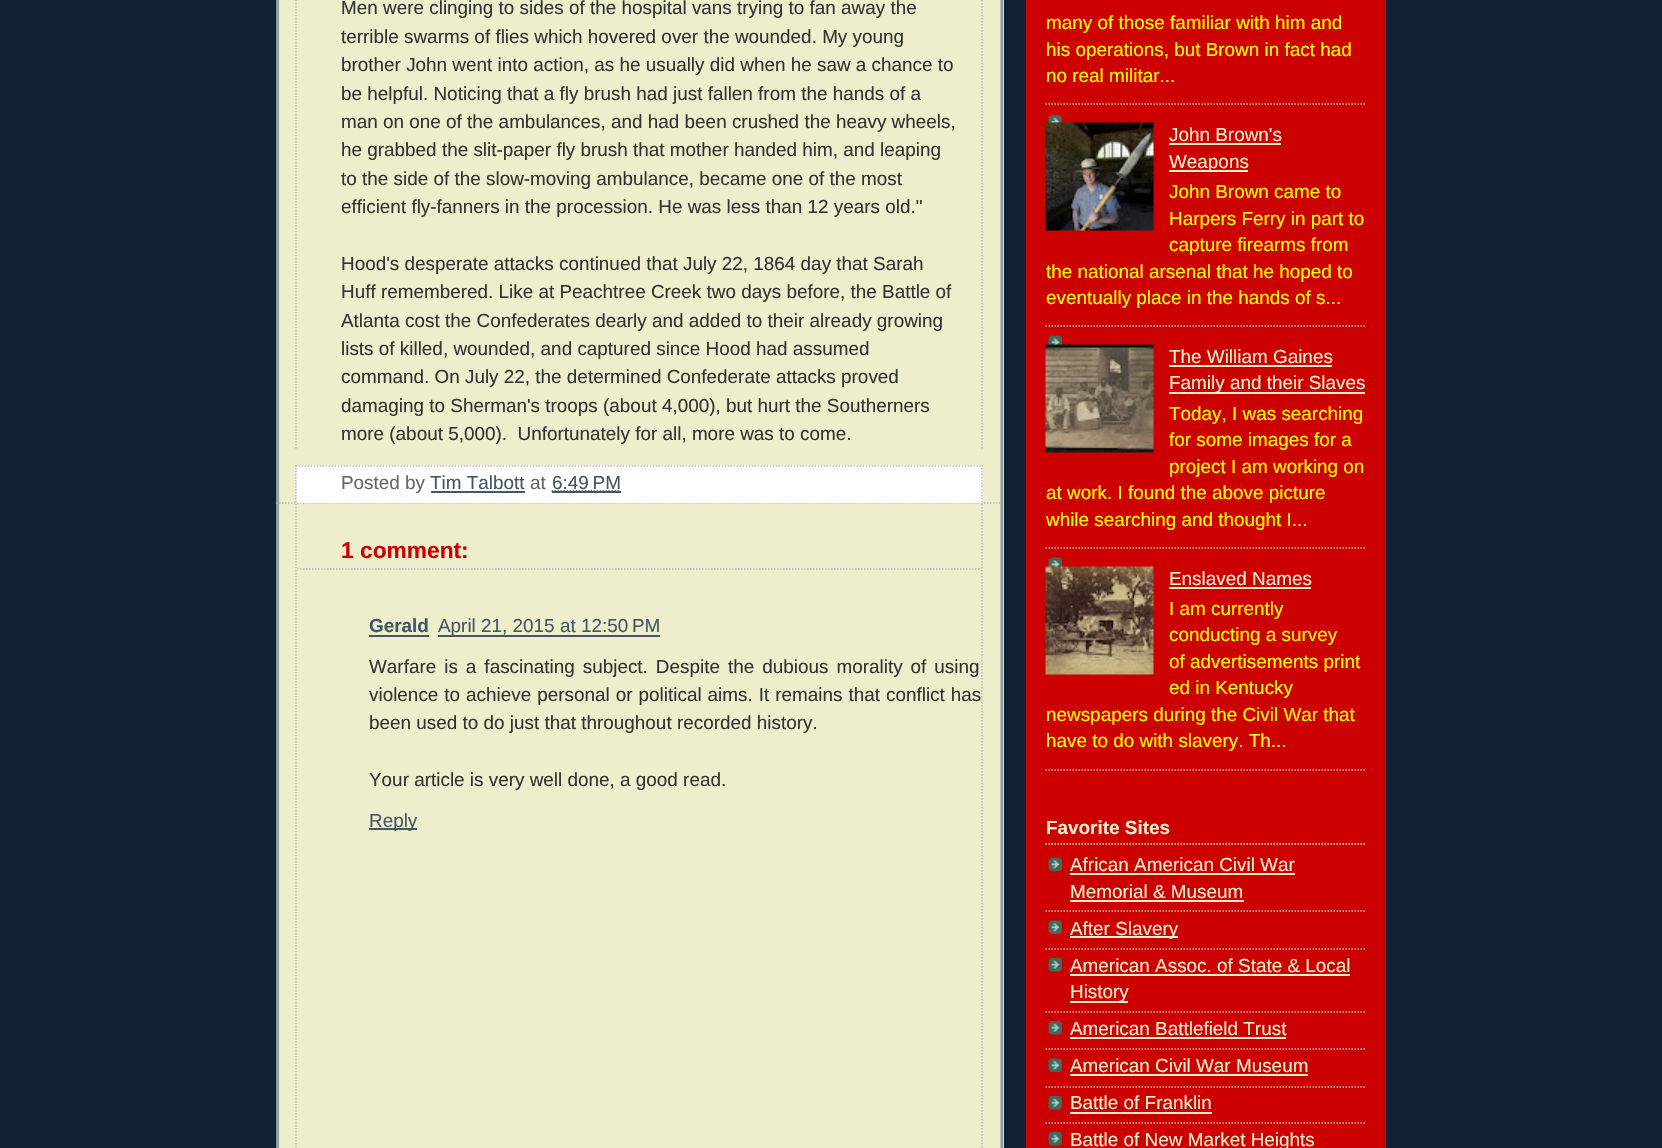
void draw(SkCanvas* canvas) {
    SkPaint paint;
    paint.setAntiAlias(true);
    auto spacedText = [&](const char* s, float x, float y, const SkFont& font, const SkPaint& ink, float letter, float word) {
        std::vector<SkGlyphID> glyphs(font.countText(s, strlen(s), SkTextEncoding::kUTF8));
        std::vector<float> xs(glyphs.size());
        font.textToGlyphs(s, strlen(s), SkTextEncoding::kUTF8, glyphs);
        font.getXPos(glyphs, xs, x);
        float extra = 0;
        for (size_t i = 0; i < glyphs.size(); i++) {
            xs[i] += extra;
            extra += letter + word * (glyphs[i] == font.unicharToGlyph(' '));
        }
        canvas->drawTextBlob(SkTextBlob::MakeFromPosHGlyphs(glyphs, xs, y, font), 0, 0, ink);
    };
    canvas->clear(0xFF112233);
    paint.setColor(0xFFEEEECC);
    canvas->drawRect(SkRect::MakeXYWH(278, 0, 726, 1148), paint);
    canvas->drawImageRect(SkImages::DeferredFromEncodedData(SkData::MakeFromFileName("img1.png")), SkRect::MakeXYWH(276, 0, 728, 1148), SkSamplingOptions());
    paint.setStyle(SkPaint::kStroke_Style);
    paint.setStrokeWidth(1.5f);
    paint.setColor(0xFFBBBBBB);
    paint.setPathEffect(SkDashPathEffect::Make({{1.5f, 1.5f}}, 0));
    canvas->drawPath(SkPathBuilder().moveTo(276, 503).lineTo(1002, 503).detach(), paint);
    paint.setPathEffect(nullptr);
    paint.setPathEffect(SkDashPathEffect::Make({{1.5f, 1.5f}}, 0));
    canvas->drawPath(SkPathBuilder().moveTo(982, -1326).lineTo(982, 450).detach(), paint);
    paint.setPathEffect(nullptr);
    paint.setPathEffect(SkDashPathEffect::Make({{1.5f, 1.5f}}, 0));
    canvas->drawPath(SkPathBuilder().moveTo(296, -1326).lineTo(296, 450).detach(), paint);
    paint.setPathEffect(nullptr);
    SkFont font1(fontMgr->matchFamilyStyle("Liberation Sans", SkFontStyle::Normal()), 18.9f);
    font1.setSubpixel(true);
    paint.setStyle(SkPaint::kFill_Style);
    paint.setColor(0xFF333333);
    canvas->drawString("Men were clinging to sides of the hospital vans trying to fan away the", 341, 14, font1, paint);
    canvas->drawString("terrible swarms of flies which hovered over the wounded. My young", 341, 43, font1, paint);
    canvas->drawString("brother John went into action, as he usually did when he saw a chance to", 341, 71, font1, paint);
    canvas->drawString("be helpful. Noticing that a fly brush had just fallen from the hands of a", 341, 100, font1, paint);
    canvas->drawString("man on one of the ambulances, and had been crushed the heavy wheels,", 341, 128, font1, paint);
    canvas->drawString("he grabbed the slit-paper fly brush that mother handed him, and leaping", 341, 156, font1, paint);
    canvas->drawString("to the side of the slow-moving ambulance, became one of the most", 341, 185, font1, paint);
    canvas->drawString("efficient fly-fanners in the procession. He was less than 12 years old.\"", 341, 213, font1, paint);
    canvas->drawString("Hood's desperate attacks continued that July 22, 1864 day that Sarah", 341, 270, font1, paint);
    canvas->drawString("Huff remembered. Like at Peachtree Creek two days before, the Battle of", 341, 298, font1, paint);
    canvas->drawString("Atlanta cost the Confederates dearly and added to their already growing", 341, 327, font1, paint);
    canvas->drawString("lists of killed, wounded, and captured since Hood had assumed", 341, 355, font1, paint);
    canvas->drawString("command. On July 22, the determined Confederate attacks proved", 341, 383, font1, paint);
    canvas->drawString("damaging to Sherman's troops (about 4,000), but hurt the Southerners", 341, 412, font1, paint);
    canvas->drawString("more (about 5,000).  Unfortunately for all, more was to come.", 341, 440, font1, paint);
    paint.setColor(0xFFFFFFFF);
    canvas->drawRect(SkRect::MakeXYWH(296, 465, 687, 38), paint);
    paint.setStyle(SkPaint::kStroke_Style);
    paint.setColor(0xFFBBBBBB);
    paint.setPathEffect(SkDashPathEffect::Make({{1.5f, 1.5f}}, 0));
    canvas->drawPath(SkPathBuilder().moveTo(295.5f, 466).lineTo(982.5f, 466).detach(), paint);
    paint.setPathEffect(nullptr);
    paint.setPathEffect(SkDashPathEffect::Make({{1.5f, 1.5f}}, 0));
    canvas->drawPath(SkPathBuilder().moveTo(982, 465).lineTo(982, 502.5f).detach(), paint);
    paint.setPathEffect(nullptr);
    paint.setPathEffect(SkDashPathEffect::Make({{1.5f, 1.5f}}, 0));
    canvas->drawPath(SkPathBuilder().moveTo(296, 465).lineTo(296, 502.5f).detach(), paint);
    paint.setPathEffect(nullptr);
    paint.setStyle(SkPaint::kFill_Style);
    paint.setColor(0xFF666666);
    canvas->drawString("Posted by", 341, 489, font1, paint);
    paint.setColor(0xFF445566);
    canvas->drawString("Tim Talbott", 430, 489, font1, paint);
    canvas->drawRect(SkRect::MakeXYWH(431, 491, 94, 2), paint);
    paint.setColor(0xFF666666);
    canvas->drawString("at", 530, 489, font1, paint);
    paint.setColor(0xFF445566);
    canvas->drawString("6:49 PM", 552, 489, font1, paint);
    paint.setStyle(SkPaint::kStroke_Style);
    paint.setPathEffect(SkDashPathEffect::Make({{1.5f, 1.5f}}, 0));
    canvas->drawPath(SkPathBuilder().moveTo(551.5f, 491).lineTo(620.5f, 491).detach(), paint);
    paint.setPathEffect(nullptr);
    paint.setStyle(SkPaint::kFill_Style);
    canvas->drawRect(SkRect::MakeXYWH(552, 491, 69, 2), paint);
    paint.setStyle(SkPaint::kStroke_Style);
    paint.setColor(0xFFBBBBBB);
    paint.setPathEffect(SkDashPathEffect::Make({{1.5f, 1.5f}}, 0));
    canvas->drawPath(SkPathBuilder().moveTo(982, 504).lineTo(982, 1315.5f).detach(), paint);
    paint.setPathEffect(nullptr);
    paint.setPathEffect(SkDashPathEffect::Make({{1.5f, 1.5f}}, 0));
    canvas->drawPath(SkPathBuilder().moveTo(296, 504).lineTo(296, 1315.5f).detach(), paint);
    paint.setPathEffect(nullptr);
    paint.setPathEffect(SkDashPathEffect::Make({{1.5f, 1.5f}}, 0));
    canvas->drawPath(SkPathBuilder().moveTo(297, 569).lineTo(981, 569).detach(), paint);
    paint.setPathEffect(nullptr);
    SkFont font2(fontMgr->matchFamilyStyle("Liberation Sans", SkFontStyle::Bold()), 22.75f);
    font2.setSubpixel(true);
    paint.setStyle(SkPaint::kFill_Style);
    paint.setColor(0xFFCC0000);
    canvas->drawString("1 comment:", 341, 558, font2, paint);
    SkFont font3(fontMgr->matchFamilyStyle("Liberation Sans", SkFontStyle::Bold()), 18.9f);
    font3.setSubpixel(true);
    paint.setColor(0xFF445566);
    canvas->drawString("Gerald", 369, 632, font3, paint);
    canvas->drawRect(SkRect::MakeXYWH(369, 635, 60, 2), paint);
    canvas->drawRect(SkRect::MakeXYWH(438, 635, 222, 2), paint);
    canvas->drawString("April 21, 2015 at 12:50 PM", 438, 632, font1, paint);
    paint.setColor(0xFF333333);
    spacedText("Warfare is a fascinating subject. Despite the dubious morality of using", 369, 673, font1, paint, 0, 2.75f);
    spacedText("violence to achieve personal or political aims. It remains that conflict has", 369, 701, font1, paint, 0, 0.75f);
    canvas->drawString("been used to do just that throughout recorded history.", 369, 729, font1, paint);
    canvas->drawString("Your article is very well done, a good read.", 369, 786, font1, paint);
    paint.setColor(0xFF445566);
    canvas->drawRect(SkRect::MakeXYWH(369, 828, 48, 2), paint);
    canvas->drawString("Reply", 369, 827, font1, paint);
    paint.setColor(0xFFCC0000);
    canvas->drawRect(SkRect::MakeXYWH(1026, 0, 360, 1148), paint);
    paint.setStyle(SkPaint::kStroke_Style);
    paint.setColor(0xFFBBBBBB);
    paint.setPathEffect(SkDashPathEffect::Make({{1.5f, 1.5f}}, 0));
    canvas->drawPath(SkPathBuilder().moveTo(1045.5f, 104).lineTo(1366.5f, 104).detach(), paint);
    paint.setPathEffect(nullptr);
    paint.setStyle(SkPaint::kFill_Style);
    paint.setColor(0xFFFFFF00);
    canvas->drawString("many of those familiar with him and", 1046, 29, font1, paint);
    canvas->drawString("his operations, but Brown in fact had", 1046, 56, font1, paint);
    canvas->drawString("no real militar...", 1046, 82, font1, paint);
    canvas->drawImageRect(SkImages::DeferredFromEncodedData(SkData::MakeFromFileName("img2.png")), SkRect::MakeXYWH(1048, 115, 14, 8), SkSamplingOptions());
    paint.setStyle(SkPaint::kStroke_Style);
    paint.setColor(0xFFBBBBBB);
    paint.setPathEffect(SkDashPathEffect::Make({{1.5f, 1.5f}}, 0));
    canvas->drawPath(SkPathBuilder().moveTo(1045.5f, 326).lineTo(1366.5f, 326).detach(), paint);
    paint.setPathEffect(nullptr);
    canvas->drawImageRect(SkImages::DeferredFromEncodedData(SkData::MakeFromFileName("img3.png")), SkRect::MakeXYWH(1045, 122, 109, 109), SkSamplingOptions());
    paint.setStyle(SkPaint::kFill_Style);
    paint.setColor(0xFFEEEECC);
    canvas->drawString("John Brown's", 1169, 141, font1, paint);
    canvas->drawRect(SkRect::MakeXYWH(1169, 143, 112, 2), paint);
    canvas->drawRect(SkRect::MakeXYWH(1169, 170, 79, 2), paint);
    canvas->drawString("Weapons", 1169, 168, font1, paint);
    paint.setColor(0xFFFFFF00);
    canvas->drawString("John Brown came to", 1169, 198, font1, paint);
    canvas->drawString("Harpers Ferry in part to", 1169, 225, font1, paint);
    canvas->drawString("capture firearms from", 1169, 251, font1, paint);
    canvas->drawString("the national arsenal that he hoped to", 1046, 278, font1, paint);
    canvas->drawString("eventually place in the hands of s...", 1046, 304, font1, paint);
    canvas->drawImageRect(SkImages::DeferredFromEncodedData(SkData::MakeFromFileName("img4.png")), SkRect::MakeXYWH(1048, 335, 14, 10), SkSamplingOptions());
    paint.setStyle(SkPaint::kStroke_Style);
    paint.setColor(0xFFBBBBBB);
    paint.setPathEffect(SkDashPathEffect::Make({{1.5f, 1.5f}}, 0));
    canvas->drawPath(SkPathBuilder().moveTo(1045.5f, 548).lineTo(1366.5f, 548).detach(), paint);
    paint.setPathEffect(nullptr);
    canvas->drawImageRect(SkImages::DeferredFromEncodedData(SkData::MakeFromFileName("img5.png")), SkRect::MakeXYWH(1045, 344, 109, 109), SkSamplingOptions());
    paint.setStyle(SkPaint::kFill_Style);
    paint.setColor(0xFFEEEECC);
    canvas->drawString("The William Gaines", 1169, 363, font1, paint);
    canvas->drawRect(SkRect::MakeXYWH(1169, 365, 163, 2), paint);
    canvas->drawRect(SkRect::MakeXYWH(1169, 392, 196, 2), paint);
    canvas->drawString("Family and their Slaves", 1169, 389, font1, paint);
    paint.setColor(0xFFFFFF00);
    canvas->drawString("Today, I was searching", 1169, 420, font1, paint);
    canvas->drawString("for some images for a", 1169, 446, font1, paint);
    canvas->drawString("project I am working on", 1169, 473, font1, paint);
    canvas->drawString("at work. I found the above picture", 1046, 499, font1, paint);
    canvas->drawString("while searching and thought I...", 1046, 526, font1, paint);
    canvas->drawImageRect(SkImages::DeferredFromEncodedData(SkData::MakeFromFileName("img4.png")), SkRect::MakeXYWH(1048, 557, 14, 10), SkSamplingOptions());
    paint.setStyle(SkPaint::kStroke_Style);
    paint.setColor(0xFFBBBBBB);
    paint.setPathEffect(SkDashPathEffect::Make({{1.5f, 1.5f}}, 0));
    canvas->drawPath(SkPathBuilder().moveTo(1045.5f, 770).lineTo(1366.5f, 770).detach(), paint);
    paint.setPathEffect(nullptr);
    canvas->drawImageRect(SkImages::DeferredFromEncodedData(SkData::MakeFromFileName("img6.png")), SkRect::MakeXYWH(1045, 566, 109, 109), SkSamplingOptions());
    paint.setStyle(SkPaint::kFill_Style);
    paint.setColor(0xFFEEEECC);
    canvas->drawString("Enslaved Names", 1169, 585, font1, paint);
    canvas->drawRect(SkRect::MakeXYWH(1169, 587, 142, 2), paint);
    paint.setColor(0xFFFFFF00);
    canvas->drawString("I am currently", 1169, 615, font1, paint);
    canvas->drawString("conducting a survey", 1169, 641, font1, paint);
    canvas->drawString("of advertisements print", 1169, 668, font1, paint);
    canvas->drawString("ed in Kentucky", 1169, 694, font1, paint);
    canvas->drawString("newspapers during the Civil War that", 1046, 721, font1, paint);
    canvas->drawString("have to do with slavery. Th...", 1046, 747, font1, paint);
    paint.setStyle(SkPaint::kStroke_Style);
    paint.setColor(0xFFEEEECC);
    paint.setPathEffect(SkDashPathEffect::Make({{1.5f, 1.5f}}, 0));
    canvas->drawPath(SkPathBuilder().moveTo(1045.5f, 844).lineTo(1366.5f, 844).detach(), paint);
    paint.setPathEffect(nullptr);
    paint.setStyle(SkPaint::kFill_Style);
    canvas->drawString("Favorite Sites", 1046, 834, font3, paint);
    canvas->drawImageRect(SkImages::DeferredFromEncodedData(SkData::MakeFromFileName("img7.png")), SkRect::MakeXYWH(1048, 857, 14, 14), SkSamplingOptions());
    paint.setStyle(SkPaint::kStroke_Style);
    paint.setColor(0xFFBBBBBB);
    paint.setPathEffect(SkDashPathEffect::Make({{1.5f, 1.5f}}, 0));
    canvas->drawPath(SkPathBuilder().moveTo(1045.5f, 911).lineTo(1366.5f, 911).detach(), paint);
    paint.setPathEffect(nullptr);
    paint.setStyle(SkPaint::kFill_Style);
    paint.setColor(0xFFEEEECC);
    canvas->drawString("African American Civil War", 1070, 871, font1, paint);
    canvas->drawRect(SkRect::MakeXYWH(1070, 873, 225, 2), paint);
    canvas->drawString("Memorial & Museum", 1070, 898, font1, paint);
    canvas->drawRect(SkRect::MakeXYWH(1070, 900, 174, 2), paint);
    canvas->drawImageRect(SkImages::DeferredFromEncodedData(SkData::MakeFromFileName("img7.png")), SkRect::MakeXYWH(1048, 920, 14, 14), SkSamplingOptions());
    paint.setStyle(SkPaint::kStroke_Style);
    paint.setColor(0xFFBBBBBB);
    paint.setPathEffect(SkDashPathEffect::Make({{1.5f, 1.5f}}, 0));
    canvas->drawPath(SkPathBuilder().moveTo(1045.5f, 949).lineTo(1366.5f, 949).detach(), paint);
    paint.setPathEffect(nullptr);
    paint.setStyle(SkPaint::kFill_Style);
    paint.setColor(0xFFEEEECC);
    canvas->drawRect(SkRect::MakeXYWH(1070, 936, 108, 2), paint);
    canvas->drawString("After Slavery", 1070, 935, font1, paint);
    canvas->drawImageRect(SkImages::DeferredFromEncodedData(SkData::MakeFromFileName("img8.png")), SkRect::MakeXYWH(1048, 958, 14, 14), SkSamplingOptions());
    paint.setStyle(SkPaint::kStroke_Style);
    paint.setColor(0xFFBBBBBB);
    paint.setPathEffect(SkDashPathEffect::Make({{1.5f, 1.5f}}, 0));
    canvas->drawPath(SkPathBuilder().moveTo(1045.5f, 1012).lineTo(1366.5f, 1012).detach(), paint);
    paint.setPathEffect(nullptr);
    paint.setStyle(SkPaint::kFill_Style);
    paint.setColor(0xFFEEEECC);
    canvas->drawString("American Assoc. of State & Local", 1070, 972, font1, paint);
    canvas->drawRect(SkRect::MakeXYWH(1070, 974, 280, 2), paint);
    canvas->drawRect(SkRect::MakeXYWH(1070, 1001, 58, 2), paint);
    canvas->drawString("History", 1070, 998, font1, paint);
    canvas->drawImageRect(SkImages::DeferredFromEncodedData(SkData::MakeFromFileName("img8.png")), SkRect::MakeXYWH(1048, 1021, 14, 14), SkSamplingOptions());
    paint.setStyle(SkPaint::kStroke_Style);
    paint.setColor(0xFFBBBBBB);
    paint.setPathEffect(SkDashPathEffect::Make({{1.5f, 1.5f}}, 0));
    canvas->drawPath(SkPathBuilder().moveTo(1045.5f, 1049).lineTo(1366.5f, 1049).detach(), paint);
    paint.setPathEffect(nullptr);
    paint.setStyle(SkPaint::kFill_Style);
    paint.setColor(0xFFEEEECC);
    canvas->drawString("American Battlefield Trust", 1070, 1035, font1, paint);
    canvas->drawRect(SkRect::MakeXYWH(1070, 1037, 216, 2), paint);
    canvas->drawImageRect(SkImages::DeferredFromEncodedData(SkData::MakeFromFileName("img7.png")), SkRect::MakeXYWH(1048, 1058, 14, 14), SkSamplingOptions());
    paint.setStyle(SkPaint::kStroke_Style);
    paint.setColor(0xFFBBBBBB);
    paint.setPathEffect(SkDashPathEffect::Make({{1.5f, 1.5f}}, 0));
    canvas->drawPath(SkPathBuilder().moveTo(1045.5f, 1087).lineTo(1366.5f, 1087).detach(), paint);
    paint.setPathEffect(nullptr);
    paint.setStyle(SkPaint::kFill_Style);
    paint.setColor(0xFFEEEECC);
    canvas->drawString("American Civil War Museum", 1070, 1072, font1, paint);
    canvas->drawRect(SkRect::MakeXYWH(1070, 1074, 238, 2), paint);
    canvas->drawImageRect(SkImages::DeferredFromEncodedData(SkData::MakeFromFileName("img8.png")), SkRect::MakeXYWH(1048, 1096, 14, 14), SkSamplingOptions());
    paint.setStyle(SkPaint::kStroke_Style);
    paint.setColor(0xFFBBBBBB);
    paint.setPathEffect(SkDashPathEffect::Make({{1.5f, 1.5f}}, 0));
    canvas->drawPath(SkPathBuilder().moveTo(1045.5f, 1123).lineTo(1366.5f, 1123).detach(), paint);
    paint.setPathEffect(nullptr);
    paint.setStyle(SkPaint::kFill_Style);
    paint.setColor(0xFFEEEECC);
    canvas->drawString("Battle of Franklin", 1070, 1109, font1, paint);
    canvas->drawRect(SkRect::MakeXYWH(1070, 1112, 142, 2), paint);
    canvas->drawImageRect(SkImages::DeferredFromEncodedData(SkData::MakeFromFileName("img8.png")), SkRect::MakeXYWH(1048, 1132, 14, 14), SkSamplingOptions());
    canvas->drawString("Battle of New Market Heights", 1070, 1146, font1, paint);
}
